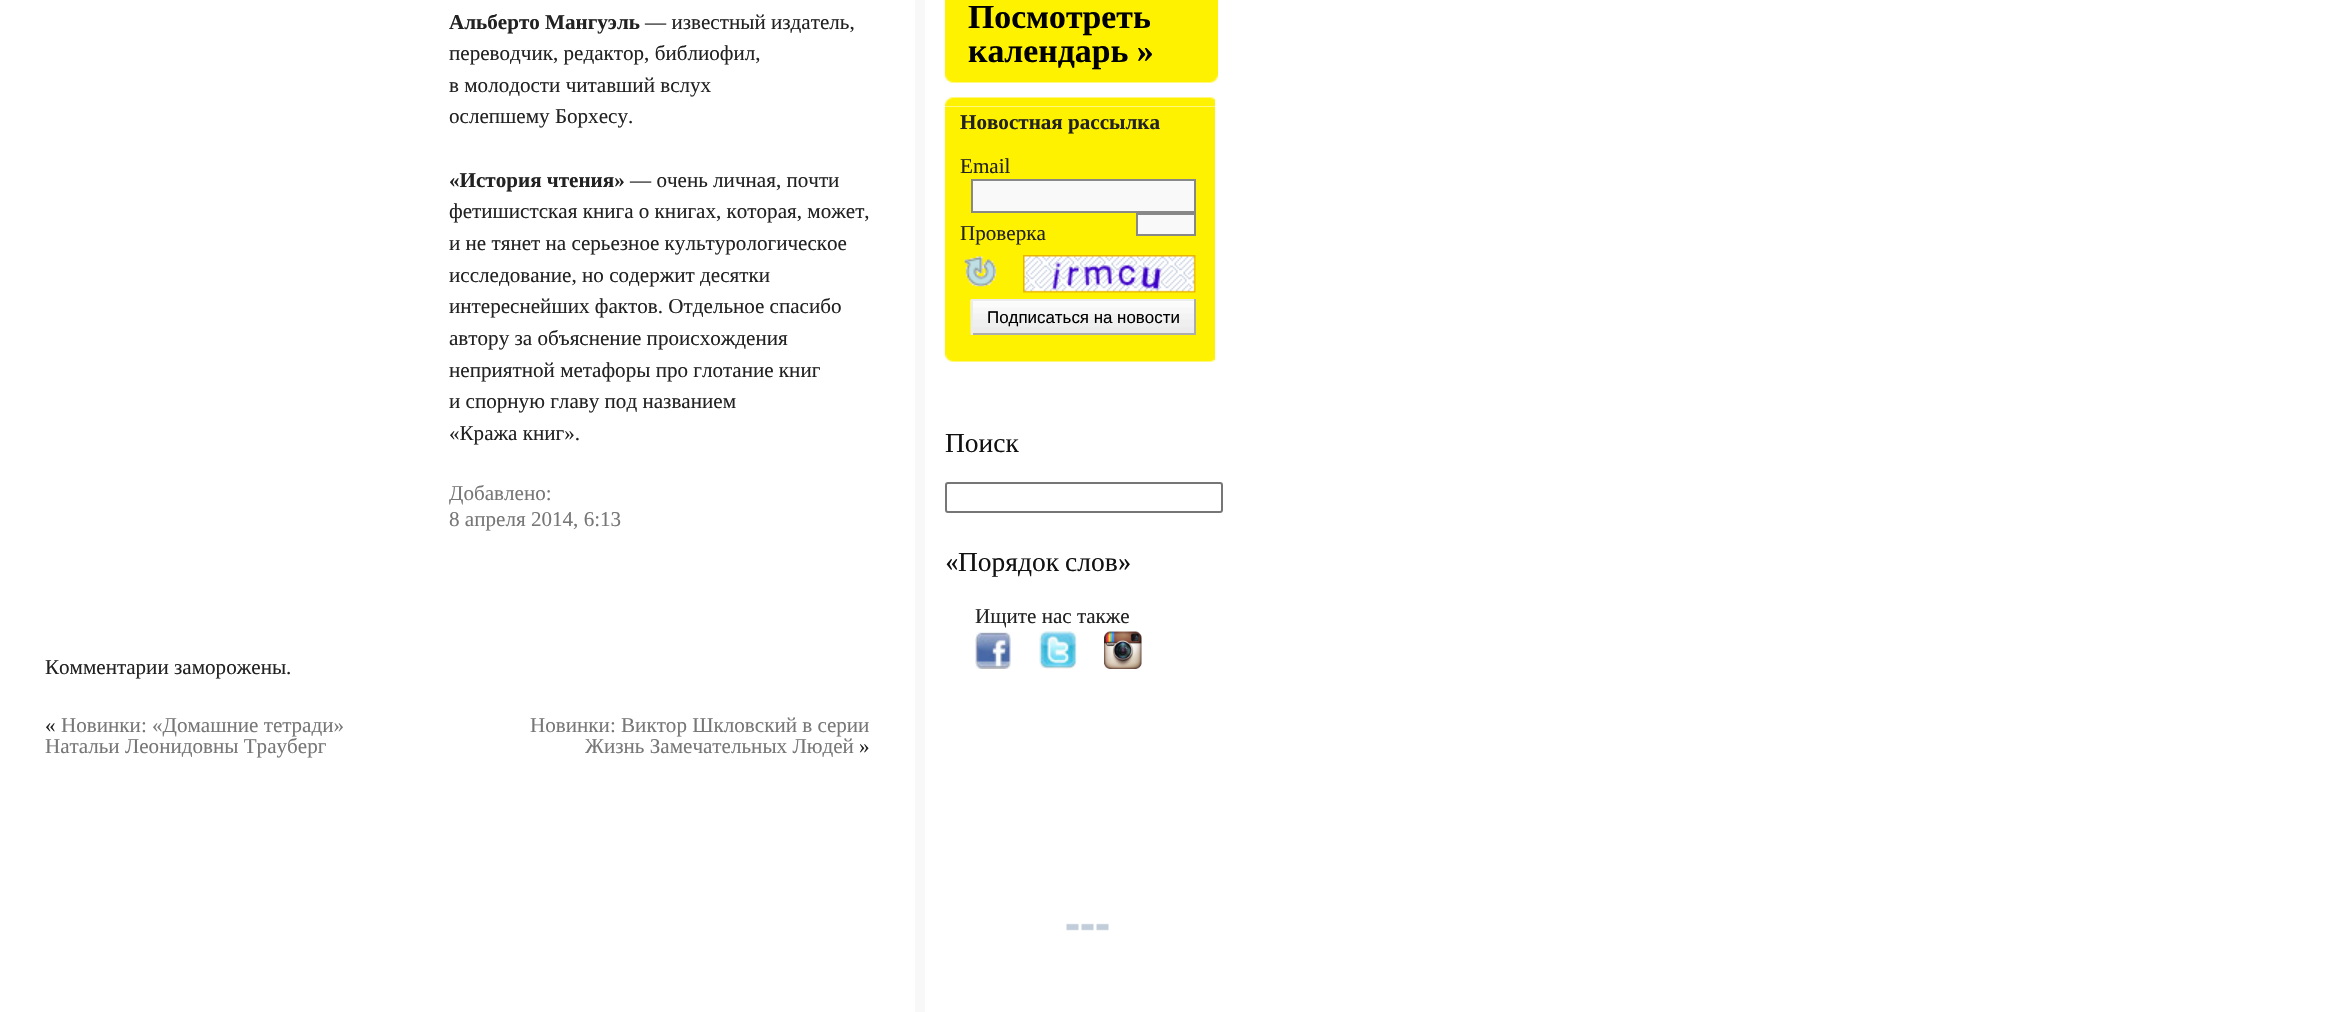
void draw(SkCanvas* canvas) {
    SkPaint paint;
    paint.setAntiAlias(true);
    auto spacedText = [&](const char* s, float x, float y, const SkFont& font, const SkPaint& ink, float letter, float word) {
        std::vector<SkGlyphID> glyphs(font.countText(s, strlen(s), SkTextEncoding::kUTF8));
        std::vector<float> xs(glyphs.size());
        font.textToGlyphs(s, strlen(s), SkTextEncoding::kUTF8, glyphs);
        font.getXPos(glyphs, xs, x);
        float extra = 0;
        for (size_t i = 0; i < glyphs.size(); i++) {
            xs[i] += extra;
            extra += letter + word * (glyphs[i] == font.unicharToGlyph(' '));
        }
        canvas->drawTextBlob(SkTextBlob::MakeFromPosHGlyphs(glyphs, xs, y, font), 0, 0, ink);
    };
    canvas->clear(0xFFFFFFFF);
    paint.setColor(0xFFF8F8F8);
    canvas->drawRect(SkRect::MakeXYWH(915, 0, 10, 1012), paint);
    SkFont font1(fontMgr->matchFamilyStyle("Liberation Serif", SkFontStyle::Bold()), 21.1f);
    font1.setSubpixel(true);
    paint.setColor(0xFF222222);
    canvas->drawString("Альберто Мангуэль", 449, 29, font1, paint);
    SkFont font2(fontMgr->matchFamilyStyle("Liberation Serif", SkFontStyle::Normal()), 21.1f);
    font2.setSubpixel(true);
    canvas->drawString("— известный издатель,", 645, 29, font2, paint);
    canvas->drawString("переводчик, редактор, библиофил,", 449, 60, font2, paint);
    canvas->drawString("в молодости читавший вслух", 449, 92, font2, paint);
    canvas->drawString("ослепшему Борхесу.", 449, 123, font2, paint);
    canvas->drawString("«История чтения»", 449, 187, font1, paint);
    canvas->drawString("— очень личная, почти", 630, 187, font2, paint);
    canvas->drawString("фетишистская книга о книгах, которая, может,", 449, 218, font2, paint);
    canvas->drawString("и не тянет на серьезное культурологическое", 449, 250, font2, paint);
    canvas->drawString("исследование, но содержит десятки", 449, 282, font2, paint);
    canvas->drawString("интереснейших фактов. Отдельное спасибо", 449, 313, font2, paint);
    canvas->drawString("автору за объяснение происхождения", 449, 345, font2, paint);
    canvas->drawString("неприятной метафоры про глотание книг", 449, 377, font2, paint);
    canvas->drawString("и спорную главу под названием", 449, 408, font2, paint);
    canvas->drawString("«Кража книг».", 449, 440, font2, paint);
    paint.setColor(0xFF777777);
    canvas->drawString("Добавлено:", 449, 500, font2, paint);
    canvas->drawString("8 апреля 2014, 6:13", 449, 526, font2, paint);
    paint.setColor(0xFF222222);
    canvas->drawString("Комментарии заморожены.", 45, 674, font2, paint);
    canvas->drawString("«", 45, 732, font2, paint);
    paint.setColor(0xFF777777);
    canvas->drawString("Новинки: «Домашние тетради»", 61, 732, font2, paint);
    canvas->drawString("Натальи Леонидовны Трауберг", 45, 753, font2, paint);
    canvas->drawString("Новинки: Виктор Шкловский в серии", 530, 732, font2, paint);
    canvas->drawString("Жизнь Замечательных Людей", 585, 753, font2, paint);
    paint.setColor(0xFF222222);
    canvas->drawString("»", 859, 753, font2, paint);
    canvas->drawImageRect(SkImages::DeferredFromEncodedData(SkData::MakeFromFileName("img1.png")), SkRect::MakeXYWH(945, 0, 273, 83), SkSamplingOptions());
    SkFont font3(fontMgr->matchFamilyStyle("Liberation Serif", SkFontStyle::Bold()), 33.75f);
    font3.setSubpixel(true);
    paint.setColor(0xFF000000);
    canvas->drawString("Посмотреть", 968, 28, font3, paint);
    canvas->drawString("календарь »", 968, 62, font3, paint);
    canvas->drawImageRect(SkImages::DeferredFromEncodedData(SkData::MakeFromFileName("img2.png")), SkRect::MakeXYWH(945, 97, 270, 10), SkSamplingOptions());
    paint.setColor(0xFFFFF200);
    canvas->drawRect(SkRect::MakeXYWH(945, 107, 270, 246), paint);
    paint.setColor(0xFF222222);
    canvas->drawString("Новостная рассылка", 960, 129, font1, paint);
    canvas->drawString("Email", 960, 173, font2, paint);
    paint.setColor(0xFFF9F9F9);
    canvas->drawRect(SkRect::MakeXYWH(972, 180, 223, 32), paint);
    paint.setStyle(SkPaint::kStroke_Style);
    paint.setStrokeWidth(2);
    paint.setColor(0xFF888888);
    canvas->drawRect(SkRect::MakeXYWH(972, 180, 223, 32), paint);
    paint.setStyle(SkPaint::kFill_Style);
    paint.setColor(0xFF222222);
    canvas->drawString("Проверка", 960, 240, font2, paint);
    paint.setColor(0xFFF9F9F9);
    canvas->drawRect(SkRect::MakeXYWH(1137, 214, 58, 21), paint);
    paint.setStyle(SkPaint::kStroke_Style);
    paint.setColor(0xFF888888);
    canvas->drawRect(SkRect::MakeXYWH(1137, 214, 58, 21), paint);
    canvas->drawImageRect(SkImages::DeferredFromEncodedData(SkData::MakeFromFileName("img3.png")), SkRect::MakeXYWH(964, 256, 32, 31), SkSamplingOptions());
    canvas->drawImageRect(SkImages::DeferredFromEncodedData(SkData::MakeFromFileName("img4.png")), SkRect::MakeXYWH(1023, 255, 173, 38), SkSamplingOptions());
    canvas->drawImageRect(SkImages::DeferredFromEncodedData(SkData::MakeFromFileName("img5.png")), SkRect::MakeXYWH(970, 300, 224, 35), SkSamplingOptions());
    paint.setStyle(SkPaint::kFill_Style);
    paint.setColor(0xFFECECEC);
    canvas->drawRect(SkRect::MakeXYWH(971, 299, 225, 2), paint);
    paint.setColor(0xFFADADAD);
    canvas->drawRect(SkRect::MakeXYWH(1194, 299, 2, 36), paint);
    canvas->drawRect(SkRect::MakeXYWH(971, 333, 225, 2), paint);
    paint.setColor(0xFFECECEC);
    canvas->drawRect(SkRect::MakeXYWH(971, 299, 2, 36), paint);
    SkFont font4(fontMgr->matchFamilyStyle("Liberation Sans", SkFontStyle::Normal()), 16.9f);
    font4.setSubpixel(true);
    paint.setColor(0xFF000000);
    canvas->drawString("Подписаться на новости", 987, 323, font4, paint);
    canvas->drawImageRect(SkImages::DeferredFromEncodedData(SkData::MakeFromFileName("img6.png")), SkRect::MakeXYWH(945, 353, 270, 9), SkSamplingOptions());
    SkFont font5(fontMgr->matchFamilyStyle("Liberation Serif", SkFontStyle::Normal()), 27.5f);
    font5.setSubpixel(true);
    paint.setColor(0xFF111111);
    canvas->drawString("Поиск", 945, 452, font5, paint);
    paint.setStyle(SkPaint::kStroke_Style);
    paint.setColor(0xFF767676);
    canvas->drawRoundRect(SkRect::MakeXYWH(946, 483, 276, 29), 2, 2, paint);
    SkFont font6(fontMgr->matchFamilyStyle("Caladea", SkFontStyle::Normal()), 27.5f);
    font6.setSubpixel(true);
    paint.setStyle(SkPaint::kFill_Style);
    paint.setColor(0xFF111111);
    canvas->drawString("«", 945, 571, font6, paint);
    spacedText("Порядок слов", 958, 571, font5, paint, 0, -1);
    canvas->drawString("»", 1118, 571, font6, paint);
    paint.setColor(0xFF222222);
    canvas->drawString("Ищите нас также", 975, 623, font2, paint);
    canvas->drawImageRect(SkImages::DeferredFromEncodedData(SkData::MakeFromFileName("img7.png")), SkRect::MakeXYWH(975, 631, 36, 38), SkSamplingOptions());
    canvas->drawImageRect(SkImages::DeferredFromEncodedData(SkData::MakeFromFileName("img8.png")), SkRect::MakeXYWH(1039, 631, 38, 38), SkSamplingOptions());
    canvas->drawImageRect(SkImages::DeferredFromEncodedData(SkData::MakeFromFileName("img9.png")), SkRect::MakeXYWH(1104, 631, 38, 38), SkSamplingOptions());
    canvas->drawImageRect(SkImages::DeferredFromEncodedData(SkData::MakeFromFileName("img10.png")), SkRect::MakeXYWH(1066, 923, 43, 8), SkSamplingOptions());
}
